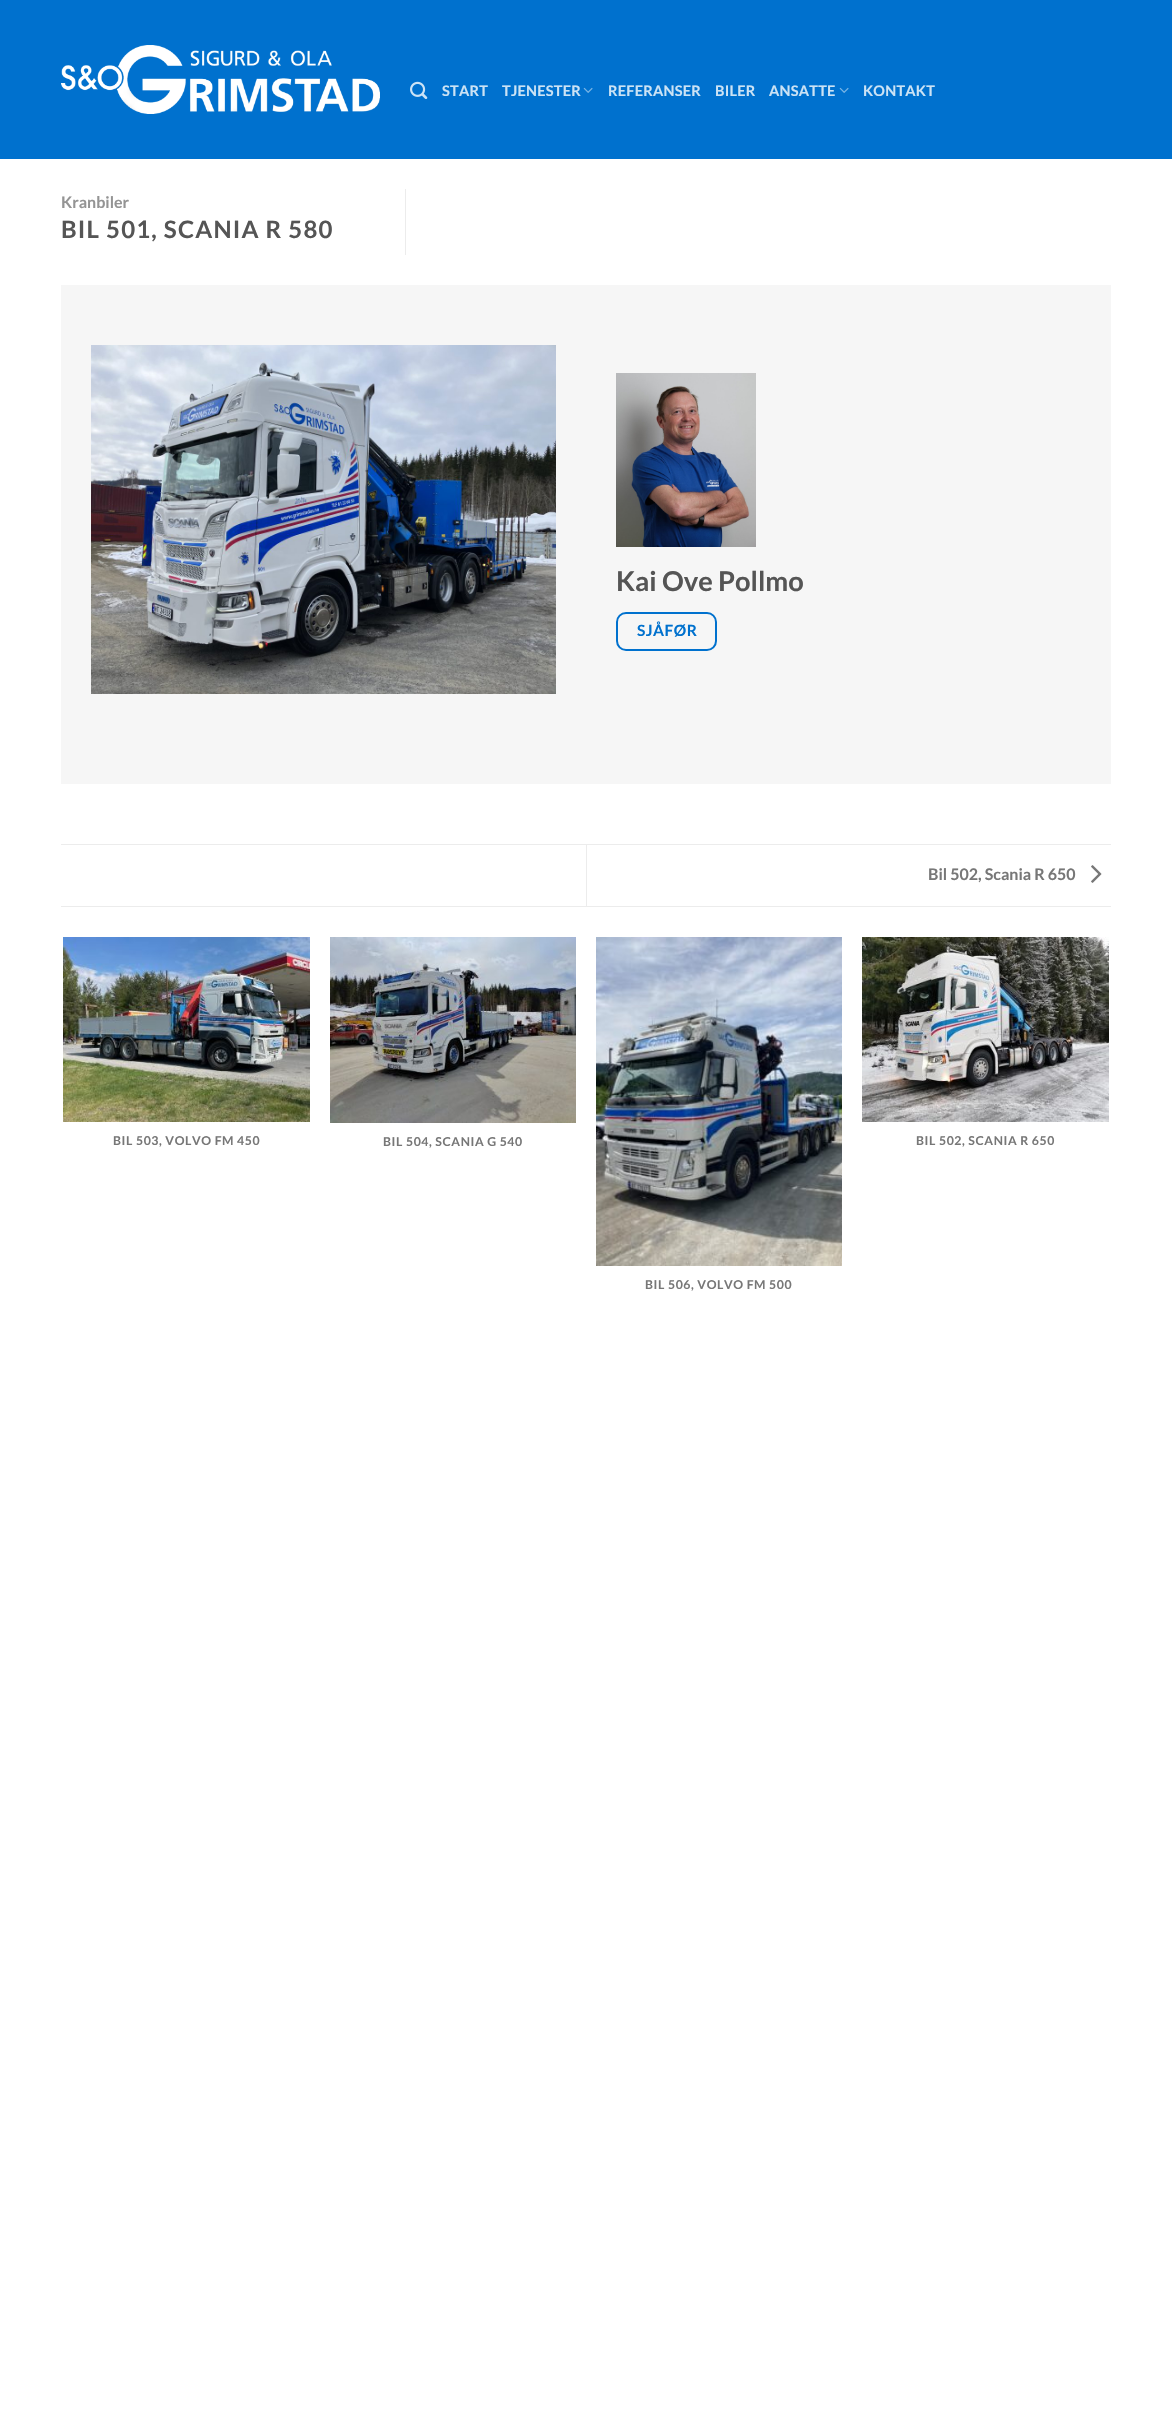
void draw(SkCanvas* canvas) {
    SkPaint paint;
    paint.setAntiAlias(true);
    auto spacedText = [&](const char* s, float x, float y, const SkFont& font, const SkPaint& ink, float letter, float word) {
        std::vector<SkGlyphID> glyphs(font.countText(s, strlen(s), SkTextEncoding::kUTF8));
        std::vector<float> xs(glyphs.size());
        font.textToGlyphs(s, strlen(s), SkTextEncoding::kUTF8, glyphs);
        font.getXPos(glyphs, xs, x);
        float extra = 0;
        for (size_t i = 0; i < glyphs.size(); i++) {
            xs[i] += extra;
            extra += letter + word * (glyphs[i] == font.unicharToGlyph(' '));
        }
        canvas->drawTextBlob(SkTextBlob::MakeFromPosHGlyphs(glyphs, xs, y, font), 0, 0, ink);
    };
    canvas->clear(0xFFFFFFFF);
    paint.setColor(0xFF0071CE);
    canvas->drawRect(SkRect::MakeXYWH(0, 0, 1172, 159), paint);
    canvas->drawImageRect(SkImages::DeferredFromEncodedData(SkData::MakeFromFileName("img1.png")), SkRect::MakeXYWH(61, 45, 319, 69), SkSamplingOptions());
    canvas->drawImageRect(SkImages::DeferredFromEncodedData(SkData::MakeFromFileName("img2.png")), SkRect::MakeXYWH(410, 81, 18, 18), SkSamplingOptions());
    SkFont font1(fontMgr->matchFamilyStyle("Lato", SkFontStyle::Bold()), 14.5f);
    font1.setSubpixel(true);
    paint.setColor(0xFFCCE3F5);
    spacedText("START", 442, 96, font1, paint, 0.25f, 0);
    spacedText("TJENESTER", 502, 96, font1, paint, 0.25f, 0);
    canvas->drawImageRect(SkImages::DeferredFromEncodedData(SkData::MakeFromFileName("img3.png")), SkRect::MakeXYWH(583, 87, 10, 6), SkSamplingOptions());
    spacedText("REFERANSER", 608, 96, font1, paint, 0.25f, 0);
    spacedText("BILER", 715, 96, font1, paint, 0.25f, 0);
    spacedText("ANSATTE", 769, 96, font1, paint, 0.25f, 0);
    canvas->drawImageRect(SkImages::DeferredFromEncodedData(SkData::MakeFromFileName("img3.png")), SkRect::MakeXYWH(839, 87, 10, 6), SkSamplingOptions());
    spacedText("KONTAKT", 863, 96, font1, paint, 0.25f, 0);
    paint.setColor(0xFFECECEC);
    canvas->drawRect(SkRect::MakeXYWH(405, 189, 1, 66), paint);
    SkFont font2(fontMgr->matchFamilyStyle("Lato", SkFontStyle::Bold()), 16);
    font2.setSubpixel(true);
    paint.setColor(0xFF949494);
    canvas->drawString("Kranbiler", 61, 208, font2, paint);
    SkFont font3(fontMgr->matchFamilyStyle("Lato", SkFontStyle::Bold()), 24);
    font3.setSubpixel(true);
    paint.setColor(0xFF555555);
    spacedText("BIL 501, SCANIA R 580", 61, 238, font3, paint, 1.2f, 0);
    paint.setColor(0xFFF6F6F6);
    canvas->drawRect(SkRect::MakeXYWH(61, 285, 1050, 499), paint);
    canvas->drawImageRect(SkImages::DeferredFromEncodedData(SkData::MakeFromFileName("img4.png")), SkRect::MakeXYWH(91, 345, 465, 349), SkSamplingOptions());
    canvas->drawImageRect(SkImages::DeferredFromEncodedData(SkData::MakeFromFileName("img5.png")), SkRect::MakeXYWH(616, 373, 140, 174), SkSamplingOptions());
    SkFont font4(fontMgr->matchFamilyStyle("Lato", SkFontStyle::Bold()), 27.25f);
    font4.setSubpixel(true);
    paint.setColor(0xFF555555);
    canvas->drawString("Kai Ove Pollmo", 616, 591, font4, paint);
    paint.setStyle(SkPaint::kStroke_Style);
    paint.setStrokeWidth(2);
    paint.setColor(0xFF0071CE);
    canvas->drawRoundRect(SkRect::MakeXYWH(617, 613, 99, 37), 9, 9, paint);
    SkFont font5(fontMgr->matchFamilyStyle("Lato", SkFontStyle::Bold()), 15.5f);
    font5.setSubpixel(true);
    paint.setStyle(SkPaint::kFill_Style);
    spacedText("SJÅFØR", 637, 636, font5, paint, 0.5f, 0);
    paint.setColor(0xFFECECEC);
    canvas->drawRect(SkRect::MakeXYWH(61, 844, 1050, 1), paint);
    canvas->drawRect(SkRect::MakeXYWH(61, 906, 1050, 1), paint);
    canvas->drawRect(SkRect::MakeXYWH(586, 845, 1, 61), paint);
    paint.setColor(0xFF777777);
    canvas->drawString("Bil 502, Scania R 650", 928, 880, font2, paint);
    canvas->drawImageRect(SkImages::DeferredFromEncodedData(SkData::MakeFromFileName("img6.png")), SkRect::MakeXYWH(1091, 865, 11, 18), SkSamplingOptions());
    canvas->drawImageRect(SkImages::DeferredFromEncodedData(SkData::MakeFromFileName("img7.png")), SkRect::MakeXYWH(63, 937, 247, 185), SkSamplingOptions());
    SkFont font6(fontMgr->matchFamilyStyle("Lato", SkFontStyle::Bold()), 12.25f);
    font6.setSubpixel(true);
    spacedText("BIL 503, VOLVO FM 450", 113, 1145, font6, paint, 0.6f, 0);
    canvas->drawImageRect(SkImages::DeferredFromEncodedData(SkData::MakeFromFileName("img8.png")), SkRect::MakeXYWH(330, 937, 246, 186), SkSamplingOptions());
    spacedText("BIL 504, SCANIA G 540", 383, 1146, font6, paint, 0.6f, 0);
    canvas->drawImageRect(SkImages::DeferredFromEncodedData(SkData::MakeFromFileName("img9.png")), SkRect::MakeXYWH(862, 937, 247, 185), SkSamplingOptions());
    spacedText("BIL 502, SCANIA R 650", 916, 1145, font6, paint, 0.6f, 0);
    canvas->drawImageRect(SkImages::DeferredFromEncodedData(SkData::MakeFromFileName("img10.png")), SkRect::MakeXYWH(596, 937, 246, 329), SkSamplingOptions());
    spacedText("BIL 506, VOLVO FM 500", 645, 1289, font6, paint, 0.6f, 0);
}
